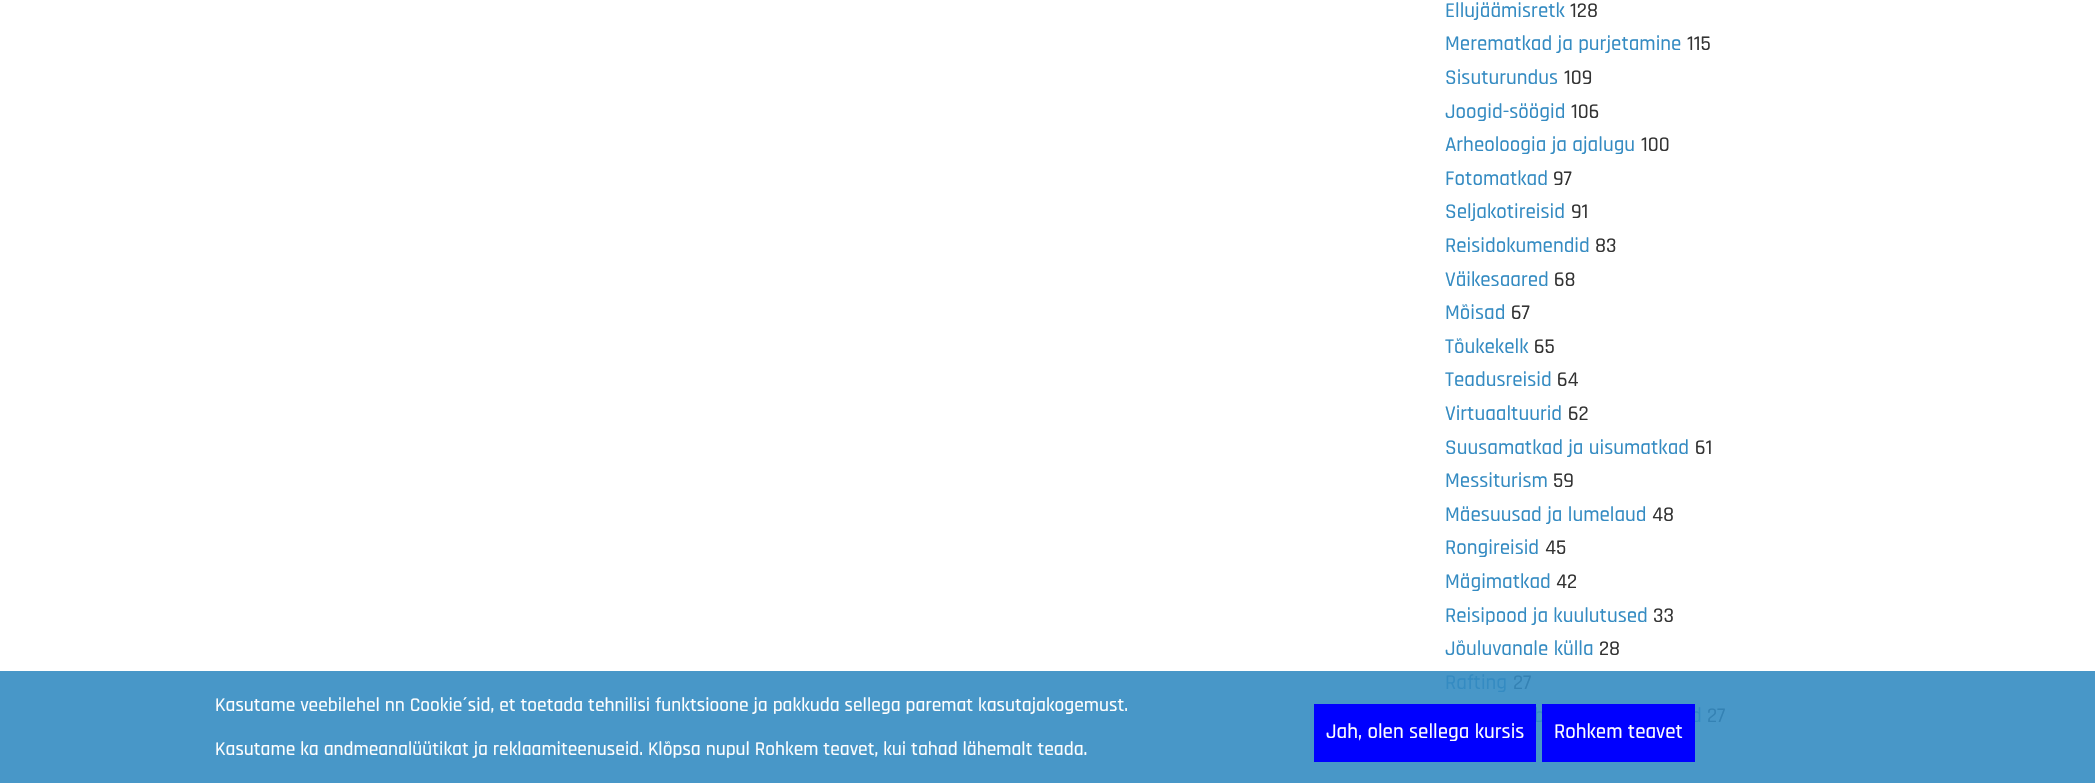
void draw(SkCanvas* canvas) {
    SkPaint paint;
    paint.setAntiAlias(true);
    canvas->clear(0xFFFFFFFF);
    paint.setColor(0xFF4897C8);
    canvas->drawRect(SkRect::MakeXYWH(0, 671, 2095, 112), paint);
    SkFont font1(fontMgr->matchFamilyStyle("Rajdhani", SkFontStyle(500, SkFontStyle::kNormal_Width, SkFontStyle::kUpright_Slant)), 21);
    font1.setSubpixel(true);
    paint.setColor(0xFF348BC2);
    canvas->drawString("Ellujäämisretk", 1445, 17, font1, paint);
    paint.setColor(0xFF333333);
    canvas->drawString("128", 1570, 17, font1, paint);
    paint.setColor(0xFF348BC2);
    canvas->drawString("Merematkad ja purjetamine", 1445, 50, font1, paint);
    paint.setColor(0xFF333333);
    canvas->drawString("115", 1687, 50, font1, paint);
    paint.setColor(0xFF348BC2);
    canvas->drawString("Sisuturundus", 1445, 84, font1, paint);
    paint.setColor(0xFF333333);
    canvas->drawString("109", 1564, 84, font1, paint);
    paint.setColor(0xFF348BC2);
    canvas->drawString("Joogid-söögid", 1445, 118, font1, paint);
    paint.setColor(0xFF333333);
    canvas->drawString("106", 1571, 118, font1, paint);
    paint.setColor(0xFF348BC2);
    canvas->drawString("Arheoloogia ja ajalugu", 1445, 151, font1, paint);
    paint.setColor(0xFF333333);
    canvas->drawString("100", 1641, 151, font1, paint);
    paint.setColor(0xFF348BC2);
    canvas->drawString("Fotomatkad", 1445, 185, font1, paint);
    paint.setColor(0xFF333333);
    canvas->drawString("97", 1553, 185, font1, paint);
    paint.setColor(0xFF348BC2);
    canvas->drawString("Seljakotireisid", 1445, 218, font1, paint);
    paint.setColor(0xFF333333);
    canvas->drawString("91", 1571, 218, font1, paint);
    paint.setColor(0xFF348BC2);
    canvas->drawString("Reisidokumendid", 1445, 252, font1, paint);
    paint.setColor(0xFF333333);
    canvas->drawString("83", 1595, 252, font1, paint);
    paint.setColor(0xFF348BC2);
    canvas->drawString("Väikesaared", 1445, 286, font1, paint);
    paint.setColor(0xFF333333);
    canvas->drawString("68", 1554, 286, font1, paint);
    paint.setColor(0xFF348BC2);
    canvas->drawString("Mõisad", 1445, 319, font1, paint);
    paint.setColor(0xFF333333);
    canvas->drawString("67", 1511, 319, font1, paint);
    paint.setColor(0xFF348BC2);
    canvas->drawString("Tõukekelk", 1445, 353, font1, paint);
    paint.setColor(0xFF333333);
    canvas->drawString("65", 1534, 353, font1, paint);
    paint.setColor(0xFF348BC2);
    canvas->drawString("Teadusreisid", 1445, 386, font1, paint);
    paint.setColor(0xFF333333);
    canvas->drawString("64", 1557, 386, font1, paint);
    paint.setColor(0xFF348BC2);
    canvas->drawString("Virtuaaltuurid", 1445, 420, font1, paint);
    paint.setColor(0xFF333333);
    canvas->drawString("62", 1568, 420, font1, paint);
    paint.setColor(0xFF348BC2);
    canvas->drawString("Suusamatkad ja uisumatkad", 1445, 454, font1, paint);
    paint.setColor(0xFF333333);
    canvas->drawString("61", 1695, 454, font1, paint);
    paint.setColor(0xFF348BC2);
    canvas->drawString("Messiturism", 1445, 487, font1, paint);
    paint.setColor(0xFF333333);
    canvas->drawString("59", 1553, 487, font1, paint);
    paint.setColor(0xFF348BC2);
    canvas->drawString("Mäesuusad ja lumelaud", 1445, 521, font1, paint);
    paint.setColor(0xFF333333);
    canvas->drawString("48", 1652, 521, font1, paint);
    paint.setColor(0xFF348BC2);
    canvas->drawString("Rongireisid", 1445, 554, font1, paint);
    paint.setColor(0xFF333333);
    canvas->drawString("45", 1545, 554, font1, paint);
    paint.setColor(0xFF348BC2);
    canvas->drawString("Mägimatkad", 1445, 588, font1, paint);
    paint.setColor(0xFF333333);
    canvas->drawString("42", 1556, 588, font1, paint);
    paint.setColor(0xFF348BC2);
    canvas->drawString("Reisipood ja kuulutused", 1445, 622, font1, paint);
    paint.setColor(0xFF333333);
    canvas->drawString("33", 1653, 622, font1, paint);
    paint.setColor(0xFF348BC2);
    canvas->drawString("Jõuluvanale külla", 1445, 655, font1, paint);
    paint.setColor(0xFF333333);
    canvas->drawString("28", 1599, 655, font1, paint);
    paint.setColor(0xFF348BC2);
    canvas->drawString("Rafting", 1445, 689, font1, paint);
    paint.setColor(0xFF3482B4);
    canvas->drawString("27", 1513, 689, font1, paint);
    paint.setColor(0xFF348BC2);
    canvas->drawString("b", 1534, 722, font1, paint);
    canvas->drawString("d", 1691, 722, font1, paint);
    paint.setColor(0xFF3482B4);
    canvas->drawString("27", 1707, 722, font1, paint);
    SkFont font2(fontMgr->matchFamilyStyle("Rajdhani", SkFontStyle(500, SkFontStyle::kNormal_Width, SkFontStyle::kUpright_Slant)), 19.5f);
    font2.setSubpixel(true);
    paint.setColor(0xFFFFFFFF);
    canvas->drawString("Kasutame veebilehel nn Cookie´sid, et toetada tehnilisi funktsioone ja pakkuda sellega paremat kasutajakogemust.", 215, 711, font2, paint);
    canvas->drawString("Kasutame ka andmeanalüütikat ja reklaamiteenuseid. Klõpsa nupul Rohkem teavet, kui tahad lähemalt teada.", 215, 755, font2, paint);
    paint.setColor(0xFF0000FF);
    canvas->drawRect(SkRect::MakeXYWH(1314, 704, 222, 58), paint);
    paint.setColor(0xFFFFFFFF);
    canvas->drawString("Jah, olen sellega kursis", 1326, 738, font1, paint);
    paint.setColor(0xFF0000FF);
    canvas->drawRect(SkRect::MakeXYWH(1542, 704, 153, 58), paint);
    paint.setColor(0xFFFFFFFF);
    canvas->drawString("Rohkem teavet", 1554, 738, font1, paint);
}
